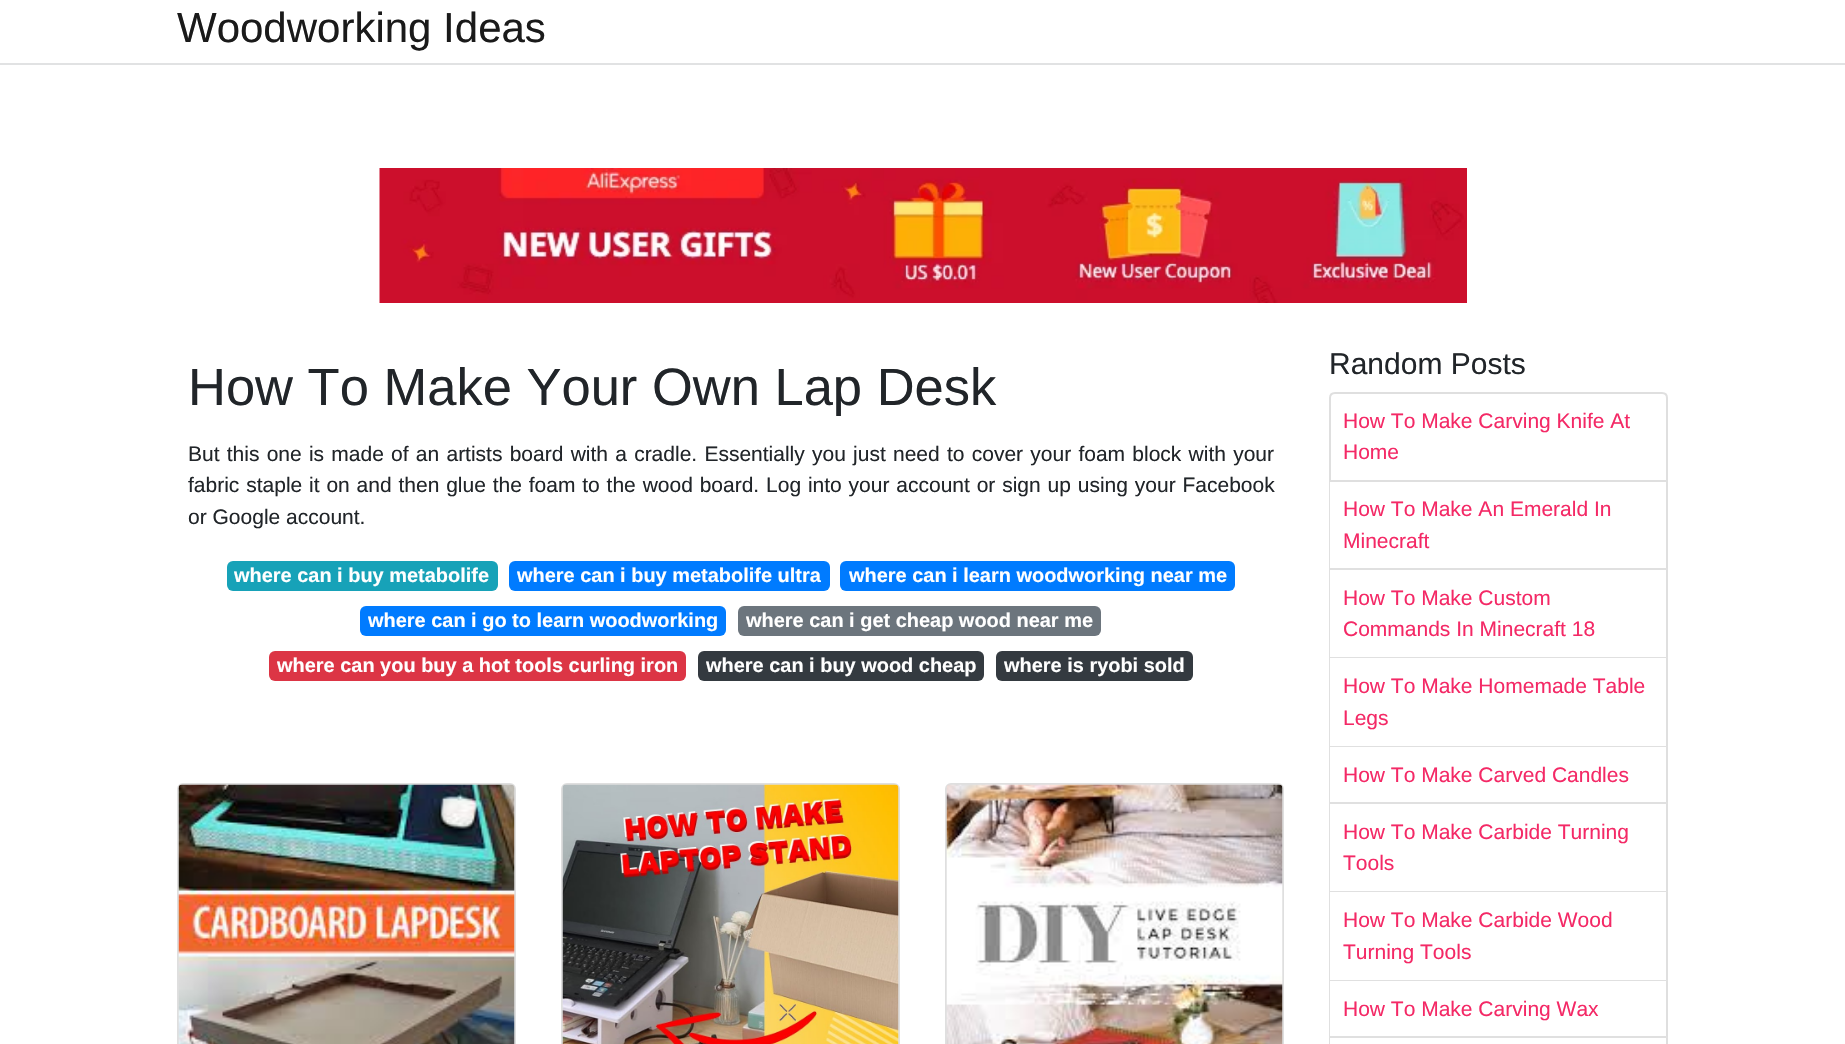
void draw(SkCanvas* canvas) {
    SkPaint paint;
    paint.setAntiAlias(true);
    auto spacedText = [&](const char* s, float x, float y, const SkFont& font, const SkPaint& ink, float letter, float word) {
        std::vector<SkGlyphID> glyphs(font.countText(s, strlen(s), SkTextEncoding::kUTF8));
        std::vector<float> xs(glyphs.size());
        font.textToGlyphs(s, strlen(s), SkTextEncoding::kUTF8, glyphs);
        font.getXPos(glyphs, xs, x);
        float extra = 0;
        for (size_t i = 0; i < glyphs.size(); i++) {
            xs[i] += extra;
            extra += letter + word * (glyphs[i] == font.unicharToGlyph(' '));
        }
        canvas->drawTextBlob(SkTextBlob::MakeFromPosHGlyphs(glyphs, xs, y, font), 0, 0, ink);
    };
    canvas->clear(0xFFFFFFFF);
    paint.setColor(0xFFE1E2E3);
    canvas->drawRect(SkRect::MakeXYWH(0, 63, 1845, 2), paint);
    SkFont font1(fontMgr->matchFamilyStyle("Liberation Sans", SkFontStyle::Normal()), 42);
    font1.setSubpixel(true);
    paint.setColor(0xFF1A1A1A);
    canvas->drawString("Woodworking Ideas", 177, 42, font1, paint);
    canvas->drawImageRect(SkImages::DeferredFromEncodedData(SkData::MakeFromFileName("img1.png")), SkRect::MakeXYWH(379, 168, 1088, 135), SkSamplingOptions());
    SkFont font2(fontMgr->matchFamilyStyle("Liberation Sans", SkFontStyle::Normal()), 52.5f);
    font2.setSubpixel(true);
    paint.setColor(0xFF212529);
    canvas->drawString("How To Make Your Own Lap Desk", 188, 405, font2, paint);
    SkFont font3(fontMgr->matchFamilyStyle("Liberation Sans", SkFontStyle::Normal()), 21);
    font3.setSubpixel(true);
    spacedText("But this one is made of an artists board with a cradle. Essentially you just need to cover your foam block with your", 188, 461, font3, paint, 0, 1.4f);
    spacedText("fabric staple it on and then glue the foam to the wood board. Log into your account or sign up using your Facebook", 188, 492, font3, paint, 0, 1);
    canvas->drawString("or Google account.", 188, 524, font3, paint);
    paint.setColor(0xFF17A2B8);
    canvas->drawRoundRect(SkRect::MakeXYWH(227, 561, 271, 30), 6, 6, paint);
    SkFont font4(fontMgr->matchFamilyStyle("Liberation Sans", SkFontStyle::Bold()), 19.95f);
    font4.setSubpixel(true);
    paint.setColor(0xFFFFFFFF);
    canvas->drawString("where can i buy metabolife", 234, 582, font4, paint);
    paint.setColor(0xFF007BFF);
    canvas->drawRoundRect(SkRect::MakeXYWH(509, 561, 321, 30), 6, 6, paint);
    paint.setColor(0xFFFFFFFF);
    canvas->drawString("where can i buy metabolife ultra", 517, 582, font4, paint);
    paint.setColor(0xFF007BFF);
    canvas->drawRoundRect(SkRect::MakeXYWH(840, 561, 395, 30), 6, 6, paint);
    paint.setColor(0xFFFFFFFF);
    canvas->drawString("where can i learn woodworking near me", 849, 582, font4, paint);
    paint.setColor(0xFF007BFF);
    canvas->drawRoundRect(SkRect::MakeXYWH(360, 606, 366, 30), 6, 6, paint);
    paint.setColor(0xFFFFFFFF);
    canvas->drawString("where can i go to learn woodworking", 368, 627, font4, paint);
    paint.setColor(0xFF6C757D);
    canvas->drawRoundRect(SkRect::MakeXYWH(738, 606, 363, 30), 6, 6, paint);
    paint.setColor(0xFFFFFFFF);
    canvas->drawString("where can i get cheap wood near me", 746, 627, font4, paint);
    paint.setColor(0xFFDC3545);
    canvas->drawRoundRect(SkRect::MakeXYWH(269, 651, 417, 30), 6, 6, paint);
    paint.setColor(0xFFFFFFFF);
    canvas->drawString("where can you buy a hot tools curling iron", 277, 672, font4, paint);
    paint.setColor(0xFF343A40);
    canvas->drawRoundRect(SkRect::MakeXYWH(698, 651, 286, 30), 6, 6, paint);
    paint.setColor(0xFFFFFFFF);
    canvas->drawString("where can i buy wood cheap", 706, 672, font4, paint);
    paint.setColor(0xFF343A40);
    canvas->drawRoundRect(SkRect::MakeXYWH(996, 651, 197, 30), 6, 6, paint);
    paint.setColor(0xFFFFFFFF);
    canvas->drawString("where is ryobi sold", 1004, 672, font4, paint);
    paint.setStyle(SkPaint::kStroke_Style);
    paint.setStrokeWidth(2);
    paint.setColor(0xFFDFDFDF);
    canvas->drawRoundRect(SkRect::MakeXYWH(178, 784, 337, 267), 5, 5, paint);
    canvas->drawImageRect(SkImages::DeferredFromEncodedData(SkData::MakeFromFileName("img2.png")), SkRect::MakeXYWH(178, 784, 337, 260), SkSamplingOptions());
    canvas->drawRoundRect(SkRect::MakeXYWH(562, 784, 337, 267), 5, 5, paint);
    canvas->drawImageRect(SkImages::DeferredFromEncodedData(SkData::MakeFromFileName("img3.png")), SkRect::MakeXYWH(562, 784, 337, 260), SkSamplingOptions());
    canvas->drawRoundRect(SkRect::MakeXYWH(946, 784, 337, 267), 5, 5, paint);
    canvas->drawImageRect(SkImages::DeferredFromEncodedData(SkData::MakeFromFileName("img4.png")), SkRect::MakeXYWH(946, 784, 337, 260), SkSamplingOptions());
    SkFont font5(fontMgr->matchFamilyStyle("Liberation Sans", SkFontStyle::Normal()), 30);
    font5.setSubpixel(true);
    paint.setStyle(SkPaint::kFill_Style);
    paint.setColor(0xFF212529);
    canvas->drawString("Random Posts", 1329, 374, font5, paint);
    paint.setStyle(SkPaint::kStroke_Style);
    paint.setColor(0xFFDFDFDF);
    canvas->drawPath(SkPathBuilder().moveTo(1335, 393).lineTo(1662, 393).cubicTo(1665, 393, 1667, 395, 1667, 398).lineTo(1667, 481).lineTo(1330, 481).lineTo(1330, 398).cubicTo(1330, 395, 1332, 393, 1335, 393).close().detach(), paint);
    paint.setStyle(SkPaint::kFill_Style);
    paint.setColor(0xFFF42966);
    canvas->drawString("How To Make Carving Knife At", 1343, 428, font3, paint);
    canvas->drawString("Home", 1343, 459, font3, paint);
    paint.setColor(0xFFDFDFDF);
    canvas->drawPath(SkPathBuilder().moveTo(1668, 482).lineTo(1668, 570).lineTo(1666, 568).lineTo(1666, 482).close().detach(), paint);
    paint.setColor(0x1F000000);
    canvas->drawPath(SkPathBuilder().moveTo(1668, 570).lineTo(1329, 570).lineTo(1330, 568).lineTo(1666, 568).close().detach(), paint);
    canvas->drawPath(SkPathBuilder().moveTo(1329, 570).lineTo(1329, 482).lineTo(1330, 482).lineTo(1330, 568).close().detach(), paint);
    paint.setColor(0xFFF42966);
    canvas->drawString("How To Make An Emerald In", 1343, 516, font3, paint);
    canvas->drawString("Minecraft", 1343, 548, font3, paint);
    paint.setColor(0xFFDFDFDF);
    canvas->drawPath(SkPathBuilder().moveTo(1668, 570).lineTo(1668, 658).lineTo(1666, 657).lineTo(1666, 570).close().detach(), paint);
    paint.setColor(0x1F000000);
    canvas->drawPath(SkPathBuilder().moveTo(1668, 658).lineTo(1329, 658).lineTo(1330, 657).lineTo(1666, 657).close().detach(), paint);
    canvas->drawPath(SkPathBuilder().moveTo(1329, 658).lineTo(1329, 570).lineTo(1330, 570).lineTo(1330, 657).close().detach(), paint);
    paint.setColor(0xFFF42966);
    canvas->drawString("How To Make Custom", 1343, 605, font3, paint);
    canvas->drawString("Commands In Minecraft 18", 1343, 636, font3, paint);
    paint.setColor(0xFFDFDFDF);
    canvas->drawPath(SkPathBuilder().moveTo(1668, 658).lineTo(1668, 747).lineTo(1666, 746).lineTo(1666, 658).close().detach(), paint);
    paint.setColor(0x1F000000);
    canvas->drawPath(SkPathBuilder().moveTo(1668, 747).lineTo(1329, 747).lineTo(1330, 746).lineTo(1666, 746).close().detach(), paint);
    canvas->drawPath(SkPathBuilder().moveTo(1329, 747).lineTo(1329, 658).lineTo(1330, 658).lineTo(1330, 746).close().detach(), paint);
    paint.setColor(0xFFF42966);
    canvas->drawString("How To Make Homemade Table", 1343, 693, font3, paint);
    canvas->drawString("Legs", 1343, 725, font3, paint);
    paint.setColor(0xFFDFDFDF);
    canvas->drawPath(SkPathBuilder().moveTo(1668, 747).lineTo(1668, 804).lineTo(1666, 802).lineTo(1666, 747).close().detach(), paint);
    paint.setColor(0x1F000000);
    canvas->drawPath(SkPathBuilder().moveTo(1668, 804).lineTo(1329, 804).lineTo(1330, 802).lineTo(1666, 802).close().detach(), paint);
    canvas->drawPath(SkPathBuilder().moveTo(1329, 804).lineTo(1329, 747).lineTo(1330, 747).lineTo(1330, 802).close().detach(), paint);
    paint.setColor(0xFFF42966);
    canvas->drawString("How To Make Carved Candles", 1343, 782, font3, paint);
    paint.setColor(0xFFDFDFDF);
    canvas->drawPath(SkPathBuilder().moveTo(1668, 804).lineTo(1668, 892).lineTo(1666, 891).lineTo(1666, 804).close().detach(), paint);
    paint.setColor(0x1F000000);
    canvas->drawPath(SkPathBuilder().moveTo(1668, 892).lineTo(1329, 892).lineTo(1330, 891).lineTo(1666, 891).close().detach(), paint);
    canvas->drawPath(SkPathBuilder().moveTo(1329, 892).lineTo(1329, 804).lineTo(1330, 804).lineTo(1330, 891).close().detach(), paint);
    paint.setColor(0xFFF42966);
    canvas->drawString("How To Make Carbide Turning", 1343, 839, font3, paint);
    canvas->drawString("Tools", 1343, 870, font3, paint);
    paint.setColor(0xFFDFDFDF);
    canvas->drawPath(SkPathBuilder().moveTo(1668, 892).lineTo(1668, 981).lineTo(1666, 980).lineTo(1666, 892).close().detach(), paint);
    paint.setColor(0x1F000000);
    canvas->drawPath(SkPathBuilder().moveTo(1668, 981).lineTo(1329, 981).lineTo(1330, 980).lineTo(1666, 980).close().detach(), paint);
    canvas->drawPath(SkPathBuilder().moveTo(1329, 981).lineTo(1329, 892).lineTo(1330, 892).lineTo(1330, 980).close().detach(), paint);
    paint.setColor(0xFFF42966);
    canvas->drawString("How To Make Carbide Wood", 1343, 927, font3, paint);
    canvas->drawString("Turning Tools", 1343, 959, font3, paint);
    paint.setColor(0xFFDFDFDF);
    canvas->drawPath(SkPathBuilder().moveTo(1668, 981).lineTo(1668, 1038).lineTo(1666, 1036).lineTo(1666, 981).close().detach(), paint);
    paint.setColor(0x1F000000);
    canvas->drawPath(SkPathBuilder().moveTo(1668, 1038).lineTo(1329, 1038).lineTo(1330, 1036).lineTo(1666, 1036).close().detach(), paint);
    canvas->drawPath(SkPathBuilder().moveTo(1329, 1038).lineTo(1329, 981).lineTo(1330, 981).lineTo(1330, 1036).close().detach(), paint);
    paint.setColor(0xFFF42966);
    canvas->drawString("How To Make Carving Wax", 1343, 1016, font3, paint);
    paint.setColor(0xFFDFDFDF);
    canvas->drawPath(SkPathBuilder().moveTo(1668, 1038).lineTo(1668, 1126).lineTo(1666, 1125).lineTo(1666, 1038).close().detach(), paint);
    canvas->drawPath(SkPathBuilder().moveTo(1329, 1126).lineTo(1329, 1038).lineTo(1330, 1038).lineTo(1330, 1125).close().detach(), paint);
}
